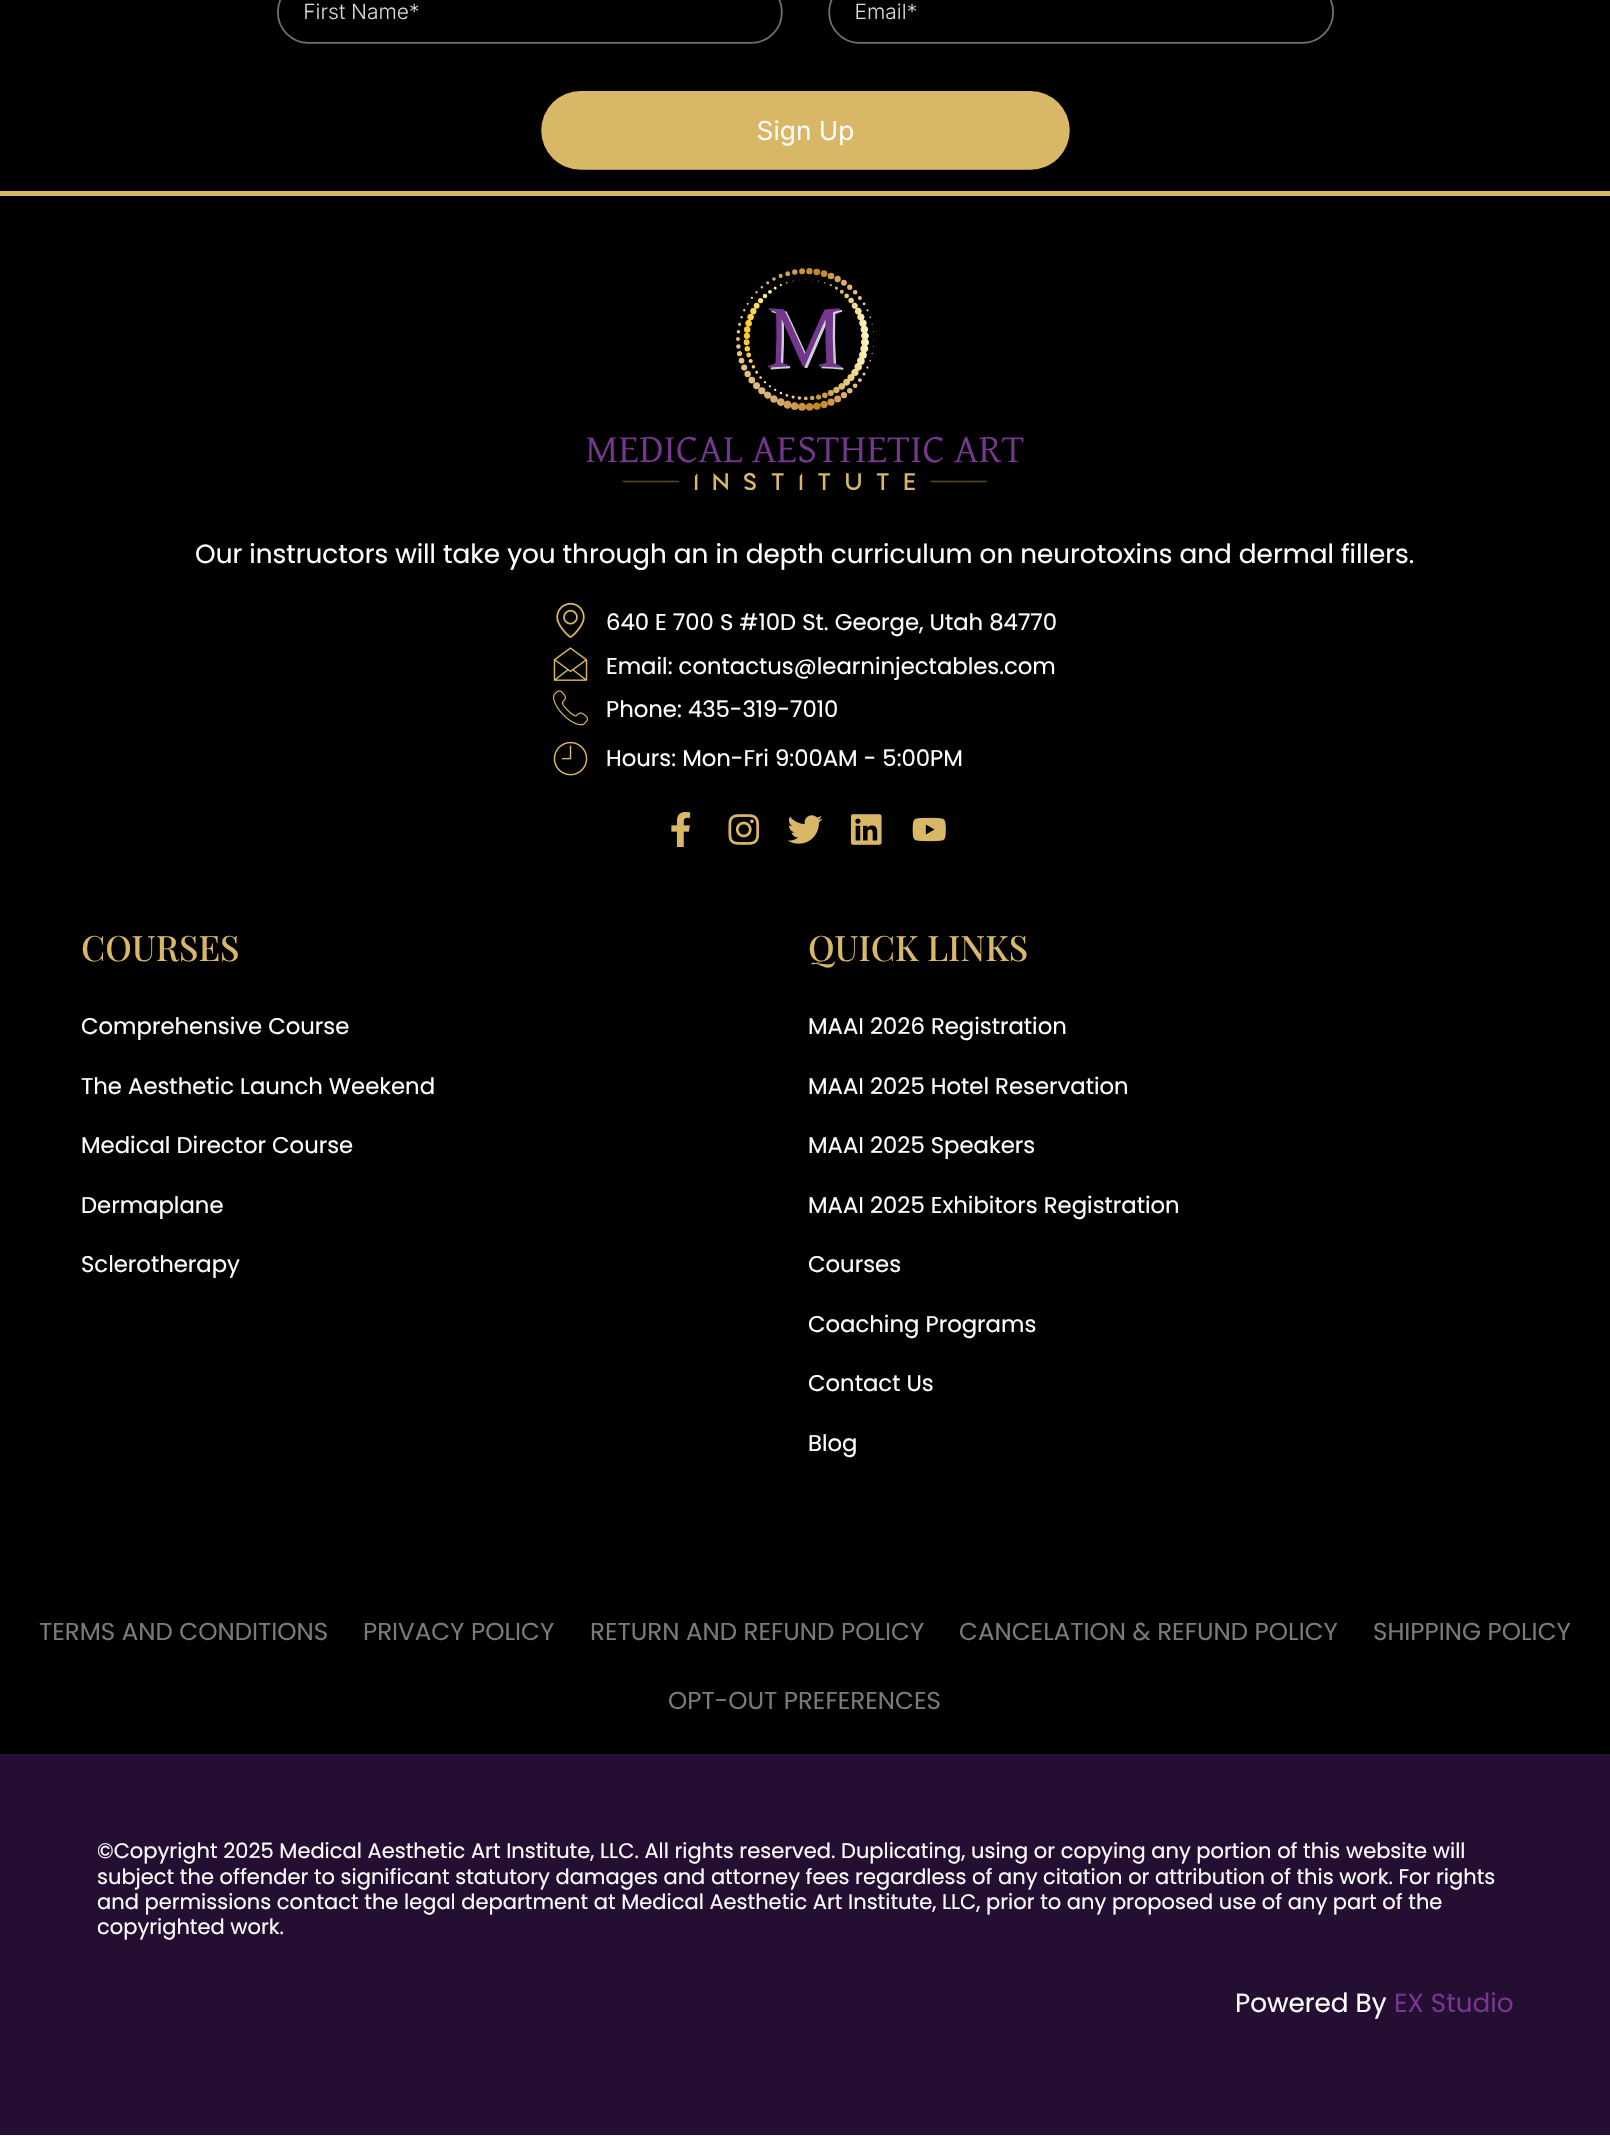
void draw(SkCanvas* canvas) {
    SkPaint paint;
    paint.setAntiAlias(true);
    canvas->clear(0xFFFFFFFF);
    paint.setColor(0xFF000000);
    canvas->drawRect(SkRect::MakeXYWH(0, 0, 1610, 191), paint);
    canvas->drawImageRect(SkImages::DeferredFromEncodedData(SkData::MakeFromFileName("img1.png")), SkRect::MakeXYWH(277, 0, 1057, 170), SkSamplingOptions());
    canvas->drawRect(SkRect::MakeXYWH(0, 196, 1610, 1558), paint);
    paint.setColor(0xFFD8B766);
    canvas->drawRect(SkRect::MakeXYWH(0, 191, 1610, 5), paint);
    canvas->drawImageRect(SkImages::DeferredFromEncodedData(SkData::MakeFromFileName("img2.png")), SkRect::MakeXYWH(586, 268, 438, 222), SkSamplingOptions());
    SkFont font1(fontMgr->matchFamilyStyle("Poppins", SkFontStyle::Normal()), 26.25f);
    font1.setSubpixel(true);
    paint.setColor(0xFFFFFFFF);
    canvas->drawString("Our instructors will take you through an in depth curriculum on neurotoxins and dermal fillers.", 195, 563, font1, paint);
    canvas->drawImageRect(SkImages::DeferredFromEncodedData(SkData::MakeFromFileName("img3.png")), SkRect::MakeXYWH(556, 602, 29, 36), SkSamplingOptions());
    SkFont font2(fontMgr->matchFamilyStyle("Poppins", SkFontStyle::Normal()), 22.75f);
    font2.setSubpixel(true);
    canvas->drawString("640 E 700 S #10D St. George, Utah 84770", 606, 630, font2, paint);
    canvas->drawImageRect(SkImages::DeferredFromEncodedData(SkData::MakeFromFileName("img4.png")), SkRect::MakeXYWH(553, 647, 35, 34), SkSamplingOptions());
    canvas->drawString("Email: contactus@learninjectables.com", 606, 674, font2, paint);
    canvas->drawImageRect(SkImages::DeferredFromEncodedData(SkData::MakeFromFileName("img5.png")), SkRect::MakeXYWH(553, 690, 35, 36), SkSamplingOptions());
    canvas->drawString("Phone: 435-319-7010", 606, 717, font2, paint);
    canvas->drawImageRect(SkImages::DeferredFromEncodedData(SkData::MakeFromFileName("img6.png")), SkRect::MakeXYWH(553, 741, 35, 35), SkSamplingOptions());
    canvas->drawString("Hours: Mon-Fri 9:00AM - 5:00PM", 606, 766, font2, paint);
    canvas->drawImageRect(SkImages::DeferredFromEncodedData(SkData::MakeFromFileName("img7.png")), SkRect::MakeXYWH(671, 812, 20, 35), SkSamplingOptions());
    canvas->drawImageRect(SkImages::DeferredFromEncodedData(SkData::MakeFromFileName("img8.png")), SkRect::MakeXYWH(728, 814, 32, 31), SkSamplingOptions());
    canvas->drawImageRect(SkImages::DeferredFromEncodedData(SkData::MakeFromFileName("img9.png")), SkRect::MakeXYWH(788, 815, 35, 29), SkSamplingOptions());
    canvas->drawImageRect(SkImages::DeferredFromEncodedData(SkData::MakeFromFileName("img10.png")), SkRect::MakeXYWH(850, 814, 32, 31), SkSamplingOptions());
    canvas->drawImageRect(SkImages::DeferredFromEncodedData(SkData::MakeFromFileName("img11.png")), SkRect::MakeXYWH(912, 817, 34, 25), SkSamplingOptions());
    SkFont font3(fontMgr->matchFamilyStyle("Playfair Display", SkFontStyle(500, SkFontStyle::kNormal_Width, SkFontStyle::kUpright_Slant)), 35);
    font3.setSubpixel(true);
    paint.setColor(0xFFD8B766);
    canvas->drawString("COURSES", 81, 961, font3, paint);
    paint.setColor(0xFFFFFFFF);
    canvas->drawString("Comprehensive Course", 81, 1034, font2, paint);
    canvas->drawString("The Aesthetic Launch Weekend", 81, 1094, font2, paint);
    canvas->drawString("Medical Director Course", 81, 1153, font2, paint);
    canvas->drawString("Dermaplane", 81, 1213, font2, paint);
    canvas->drawString("Sclerotherapy", 81, 1272, font2, paint);
    paint.setColor(0xFFD8B766);
    canvas->drawString("QUICK LINKS", 808, 961, font3, paint);
    paint.setColor(0xFFFFFFFF);
    canvas->drawString("MAAI 2026 Registration", 808, 1034, font2, paint);
    canvas->drawString("MAAI 2025 Hotel Reservation", 808, 1094, font2, paint);
    canvas->drawString("MAAI 2025 Speakers", 808, 1153, font2, paint);
    canvas->drawString("MAAI 2025 Exhibitors Registration", 808, 1213, font2, paint);
    canvas->drawString("Courses", 808, 1272, font2, paint);
    canvas->drawString("Coaching Programs", 808, 1332, font2, paint);
    canvas->drawString("Contact Us", 808, 1391, font2, paint);
    canvas->drawString("Blog", 808, 1451, font2, paint);
    SkFont font4(fontMgr->matchFamilyStyle("Poppins", SkFontStyle::Normal()), 24.5f);
    font4.setSubpixel(true);
    paint.setColor(0xFF7A7A7A);
    canvas->drawString("TERMS AND CONDITIONS", 39, 1640, font4, paint);
    canvas->drawString("PRIVACY POLICY", 363, 1640, font4, paint);
    canvas->drawString("RETURN AND REFUND POLICY", 590, 1640, font4, paint);
    canvas->drawString("CANCELATION & REFUND POLICY", 959, 1640, font4, paint);
    canvas->drawString("SHIPPING POLICY", 1373, 1640, font4, paint);
    canvas->drawString("OPT-OUT PREFERENCES", 668, 1709, font4, paint);
    paint.setColor(0xFF240E32);
    canvas->drawRect(SkRect::MakeXYWH(0, 1754, 1610, 381), paint);
    SkFont font5(fontMgr->matchFamilyStyle("Poppins", SkFontStyle::Normal()), 21);
    font5.setSubpixel(true);
    paint.setColor(0xFFFFFFFF);
    canvas->drawString("©Copyright 2025 Medical Aesthetic Art Institute, LLC. All rights reserved. Duplicating, using or copying any portion of this website will", 97, 1858, font5, paint);
    canvas->drawString("subject the offender to significant statutory damages and attorney fees regardless of any citation or attribution of this work. For rights", 97, 1884, font5, paint);
    canvas->drawString("and permissions contact the legal department at Medical Aesthetic Art Institute, LLC, prior to any proposed use of any part of the", 97, 1909, font5, paint);
    canvas->drawString("copyrighted work.", 97, 1934, font5, paint);
    canvas->drawString("Powered By", 1235, 2012, font1, paint);
    paint.setColor(0xFF75378D);
    canvas->drawString("EX Studio", 1394, 2012, font1, paint);
}
